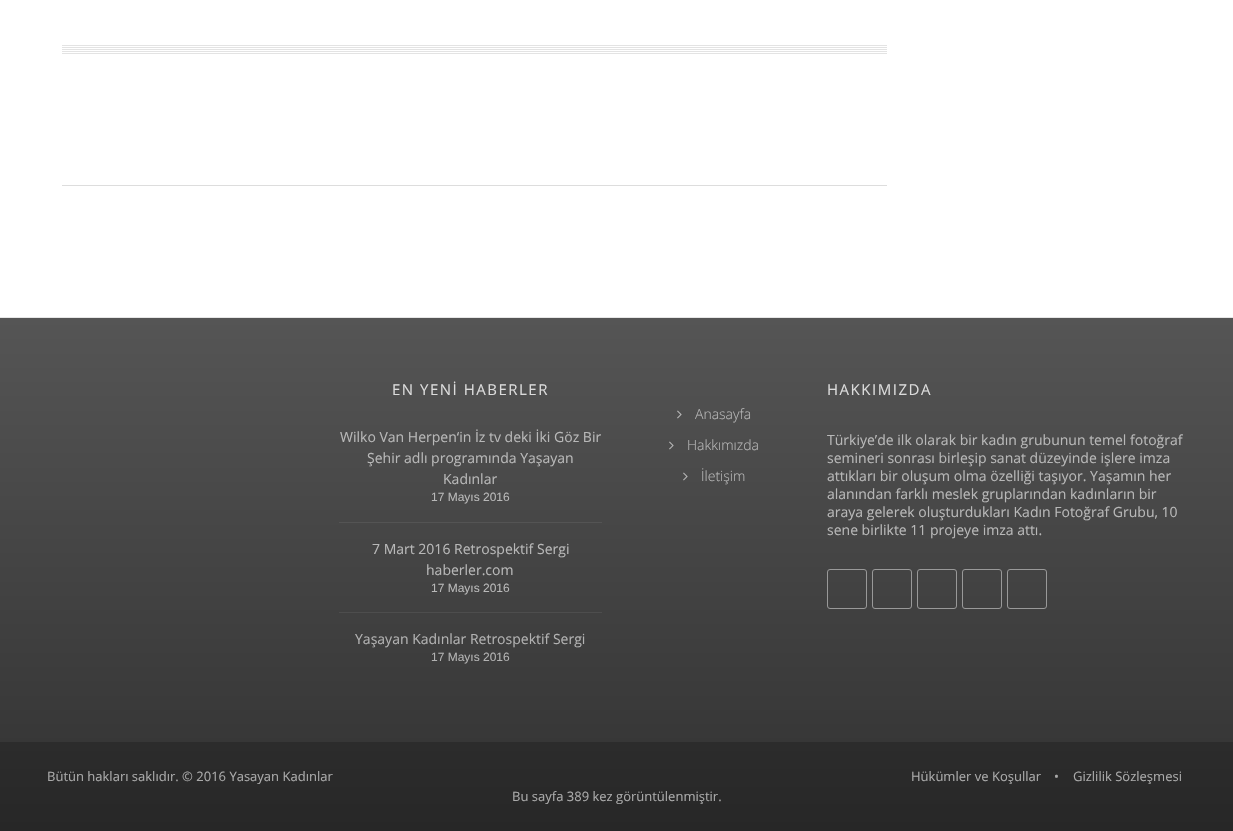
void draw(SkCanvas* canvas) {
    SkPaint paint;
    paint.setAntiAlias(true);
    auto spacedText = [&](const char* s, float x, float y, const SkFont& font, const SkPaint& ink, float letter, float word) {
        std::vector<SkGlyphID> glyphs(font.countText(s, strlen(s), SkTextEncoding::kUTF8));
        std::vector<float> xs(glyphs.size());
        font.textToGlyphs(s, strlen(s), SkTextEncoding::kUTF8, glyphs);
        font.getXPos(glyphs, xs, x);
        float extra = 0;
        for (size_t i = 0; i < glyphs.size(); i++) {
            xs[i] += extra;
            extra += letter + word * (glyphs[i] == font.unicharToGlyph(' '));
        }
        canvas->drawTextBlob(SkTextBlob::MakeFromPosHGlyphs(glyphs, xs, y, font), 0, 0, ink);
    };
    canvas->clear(0xFFFFFFFF);
    paint.setColor(0xFFE6E6E6);
    canvas->drawRect(SkRect::MakeXYWH(0, 317, 1233, 1), paint);
    canvas->drawImageRect(SkImages::DeferredFromEncodedData(SkData::MakeFromFileName("img1.png")), SkRect::MakeXYWH(62, 45, 825, 9), SkSamplingOptions());
    paint.setColor(0xFFDDDDDD);
    canvas->drawRect(SkRect::MakeXYWH(62, 185, 825, 1), paint);
    {
        const SkColor colors[] = {0xFF555555, 0xFF313131};
        const float stops[] = {0, 1};
        const SkPoint ends[] = {{617, 318}, {617, 831}};
        paint.setShader(SkGradientShader::MakeLinear(ends, colors, stops, 2, SkTileMode::kClamp));
        paint.setAlpha(255);
    }
    canvas->drawRect(SkRect::MakeXYWH(0, 318, 1233, 424), paint);
    {
        const SkColor colors[] = {0xFF444444, 0xFF272727};
        const float stops[] = {0, 1};
        const SkPoint ends[] = {{617, 318}, {617, 831}};
        paint.setShader(SkGradientShader::MakeLinear(ends, colors, stops, 2, SkTileMode::kClamp));
        paint.setAlpha(255);
    }
    canvas->drawRect(SkRect::MakeXYWH(0, 742, 1233, 89), paint);
    SkFont font1(fontMgr->matchFamilyStyle("Open Sans", SkFontStyle::Normal()), 15);
    font1.setSubpixel(true);
    paint.setShader(nullptr);
    paint.setColor(0xFFDCDCDC);
    spacedText("EN YENİ HABERLER", 392, 395, font1, paint, 1.5f, 0);
    paint.setColor(0xFF545454);
    canvas->drawRect(SkRect::MakeXYWH(339, 522, 263, 1), paint);
    SkFont font2(fontMgr->matchFamilyStyle("Open Sans", SkFontStyle::Normal()), 14);
    font2.setSubpixel(true);
    paint.setColor(0xFFB8B8B8);
    canvas->drawString("Wilko Van Herpen‘in İz tv deki İki Göz Bir", 340, 442, font2, paint);
    canvas->drawString("Şehir adlı programında Yaşayan", 367, 463, font2, paint);
    canvas->drawString("Kadınlar", 443, 484, font2, paint);
    SkFont font3(fontMgr->matchFamilyStyle("Liberation Sans", SkFontStyle::Normal()), 12);
    font3.setSubpixel(true);
    canvas->drawString("17 Mayıs 2016", 431, 501, font3, paint);
    paint.setColor(0xFF4D4D4D);
    canvas->drawRect(SkRect::MakeXYWH(339, 612, 263, 1), paint);
    paint.setColor(0xFFB8B8B8);
    canvas->drawString("7 Mart 2016 Retrospektif Sergi", 372, 554, font2, paint);
    canvas->drawString("haberler.com", 426, 575, font2, paint);
    canvas->drawString("17 Mayıs 2016", 431, 592, font3, paint);
    paint.setColor(0xFFB2B2B2);
    canvas->drawString("Yaşayan Kadınlar Retrospektif Sergi", 355, 644, font2, paint);
    canvas->drawString("17 Mayıs 2016", 431, 661, font3, paint);
    canvas->drawImageRect(SkImages::DeferredFromEncodedData(SkData::MakeFromFileName("img2.png")), SkRect::MakeXYWH(677, 410, 5, 9), SkSamplingOptions());
    SkFont font4(fontMgr->matchFamilyStyle("Open Sans", SkFontStyle(300, SkFontStyle::kNormal_Width, SkFontStyle::kUpright_Slant)), 14);
    font4.setSubpixel(true);
    paint.setColor(0xFFB8B8B8);
    canvas->drawString("Anasayfa", 695, 419, font4, paint);
    canvas->drawImageRect(SkImages::DeferredFromEncodedData(SkData::MakeFromFileName("img3.png")), SkRect::MakeXYWH(669, 441, 5, 9), SkSamplingOptions());
    canvas->drawString("Hakkımızda", 687, 450, font4, paint);
    canvas->drawImageRect(SkImages::DeferredFromEncodedData(SkData::MakeFromFileName("img4.png")), SkRect::MakeXYWH(683, 472, 5, 9), SkSamplingOptions());
    canvas->drawString("İletişim", 701, 481, font4, paint);
    paint.setColor(0xFFDCDCDC);
    spacedText("HAKKIMIZDA", 827, 395, font1, paint, 1.5f, 0);
    paint.setColor(0xFFB8B8B8);
    canvas->drawString("Türkiye’de ilk olarak bir kadın grubunun temel fotoğraf", 827, 445, font2, paint);
    canvas->drawString("semineri sonrası birleşip sanat düzeyinde işlere imza", 827, 463, font2, paint);
    canvas->drawString("attıkları bir oluşum olma özelliği taşıyor. Yaşamın her", 827, 481, font2, paint);
    canvas->drawString("alanından farklı meslek gruplarından kadınların bir", 827, 499, font2, paint);
    canvas->drawString("araya gelerek oluşturdukları Kadın Fotoğraf Grubu, 10", 827, 517, font2, paint);
    canvas->drawString("sene birlikte 11 projeye imza attı.", 827, 535, font2, paint);
    paint.setStyle(SkPaint::kStroke_Style);
    paint.setStrokeWidth(1);
    paint.setColor(0xFF999999);
    canvas->drawRoundRect(SkRect::MakeXYWH(827.5f, 569.5f, 39, 39), 2.5f, 2.5f, paint);
    canvas->drawRoundRect(SkRect::MakeXYWH(872.5f, 569.5f, 39, 39), 2.5f, 2.5f, paint);
    canvas->drawRoundRect(SkRect::MakeXYWH(917.5f, 569.5f, 39, 39), 2.5f, 2.5f, paint);
    canvas->drawRoundRect(SkRect::MakeXYWH(962.5f, 569.5f, 39, 39), 2.5f, 2.5f, paint);
    canvas->drawRoundRect(SkRect::MakeXYWH(1007.5f, 569.5f, 39, 39), 2.5f, 2.5f, paint);
    SkFont font5(fontMgr->matchFamilyStyle("Open Sans", SkFontStyle::Normal()), 13);
    font5.setSubpixel(true);
    paint.setStyle(SkPaint::kFill_Style);
    paint.setColor(0xFFAAAAAA);
    canvas->drawString("Bütün hakları saklıdır. © 2016 Yasayan Kadınlar", 47, 781, font5, paint);
    canvas->drawString("Hükümler ve Koşullar", 911, 781, font5, paint);
    canvas->drawString("•", 1054, 781, font5, paint);
    canvas->drawString("Gizlilik Sözleşmesi", 1073, 781, font5, paint);
    canvas->drawString("Bu sayfa 389 kez görüntülenmiştir.", 512, 801, font5, paint);
}
